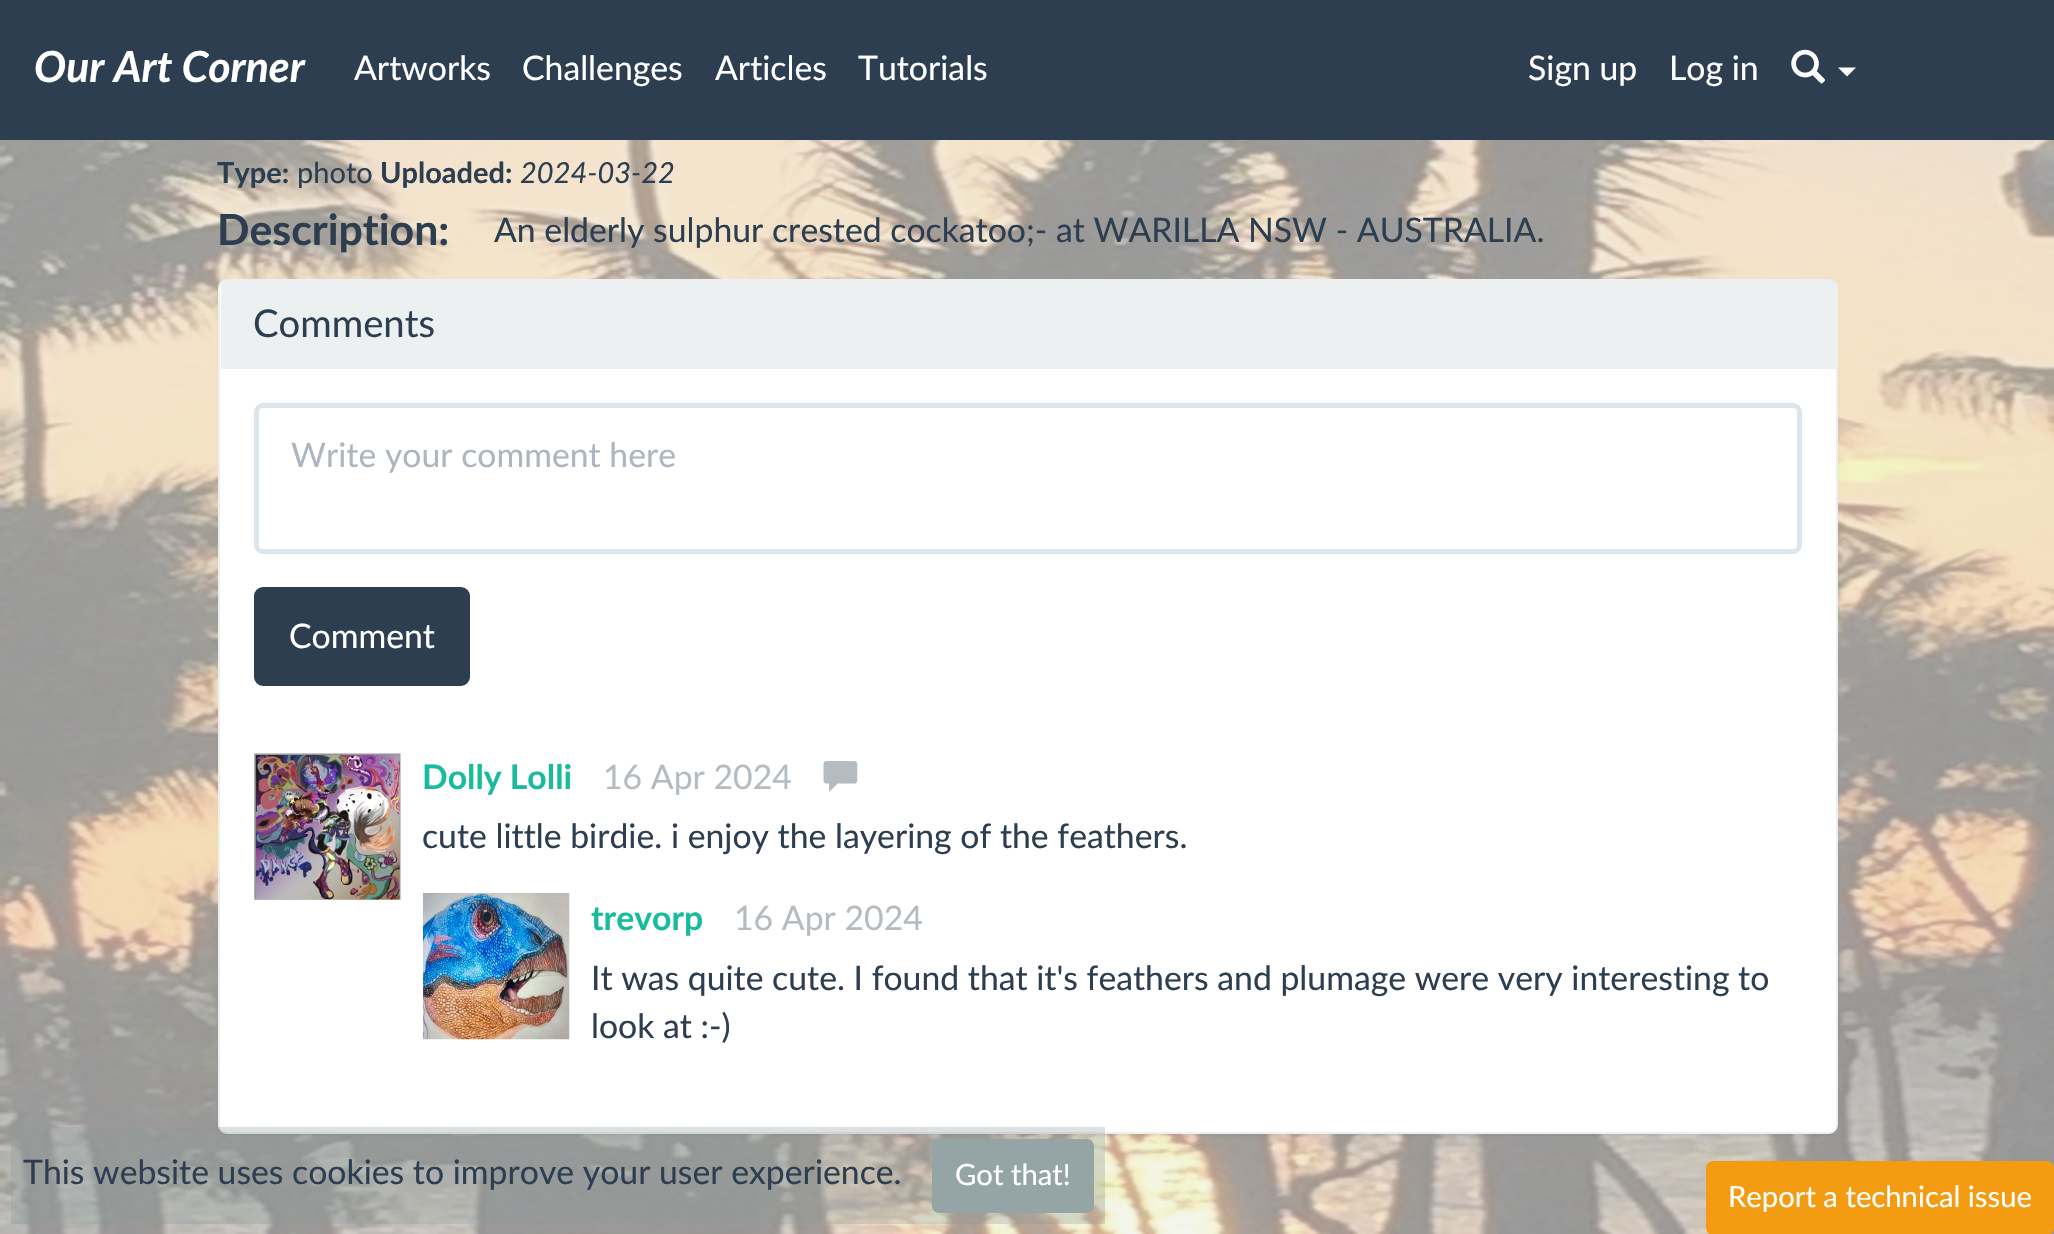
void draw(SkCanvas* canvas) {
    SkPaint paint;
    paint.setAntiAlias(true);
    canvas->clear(0xFFECF0F1);
    paint.setColor(0xFF2C3E50);
    canvas->drawRect(SkRect::MakeXYWH(0, 0, 2054, 140), paint);
    SkFont font1(fontMgr->matchFamilyStyle("Lato", SkFontStyle::BoldItalic()), 42.75f);
    font1.setSubpixel(true);
    paint.setColor(0xFFFFFFFF);
    canvas->drawString("Our Art Corner", 34, 82, font1, paint);
    SkFont font2(fontMgr->matchFamilyStyle("Lato", SkFontStyle::Normal()), 33.75f);
    font2.setSubpixel(true);
    canvas->drawString("Artworks", 354, 80, font2, paint);
    canvas->drawString("Challenges", 522, 80, font2, paint);
    canvas->drawString("Articles", 715, 80, font2, paint);
    canvas->drawString("Tutorials", 858, 80, font2, paint);
    canvas->drawString("Sign up", 1528, 80, font2, paint);
    canvas->drawString("Log in", 1669, 80, font2, paint);
    canvas->drawImageRect(SkImages::DeferredFromEncodedData(SkData::MakeFromFileName("img1.png")), SkRect::MakeXYWH(1791, 49, 34, 35), SkSamplingOptions());
    canvas->drawPath(SkPathBuilder().moveTo(1838, 67.5f).lineTo(1856, 67.5f).lineTo(1847, 76.5f).close().detach(), paint);
    canvas->drawImageRect(SkImages::DeferredFromEncodedData(SkData::MakeFromFileName("img2.png")), SkRect::MakeXYWH(0, 140, 2054, 1094), SkSamplingOptions());
    SkFont font3(fontMgr->matchFamilyStyle("Lato", SkFontStyle::Bold()), 29);
    font3.setSubpixel(true);
    paint.setColor(0xFF2C3E50);
    canvas->drawString("Type:", 217, 183, font3, paint);
    SkFont font4(fontMgr->matchFamilyStyle("Lato", SkFontStyle::Normal()), 29);
    font4.setSubpixel(true);
    canvas->drawString("photo", 297, 183, font4, paint);
    canvas->drawString("Uploaded:", 380, 183, font3, paint);
    SkFont font5(fontMgr->matchFamilyStyle("Lato", SkFontStyle::Italic()), 29);
    font5.setSubpixel(true);
    canvas->drawString("2024-03-22", 520, 183, font5, paint);
    SkFont font6(fontMgr->matchFamilyStyle("Lato", SkFontStyle::Bold()), 42.75f);
    font6.setSubpixel(true);
    canvas->drawString("Description:", 217, 245, font6, paint);
    canvas->drawString("An elderly sulphur crested cockatoo;- at WARILLA NSW - AUSTRALIA.", 494, 242, font2, paint);
    paint.setColor(0x0D000000);
    paint.setMaskFilter(SkMaskFilter::MakeBlur(kNormal_SkBlurStyle, 1));
    canvas->drawRoundRect(SkRect::MakeXYWH(218, 281, 1620, 855), 9, 9, paint);
    paint.setMaskFilter(nullptr);
    paint.setColor(0xFFFFFFFF);
    canvas->drawRoundRect(SkRect::MakeXYWH(219, 280, 1618, 853), 8, 8, paint);
    paint.setStyle(SkPaint::kStroke_Style);
    paint.setStrokeWidth(2);
    paint.setColor(0xFFECF0F1);
    canvas->drawRoundRect(SkRect::MakeXYWH(219, 280, 1618, 853), 8, 8, paint);
    paint.setStyle(SkPaint::kFill_Style);
    canvas->drawPath(SkPathBuilder().moveTo(228, 281).lineTo(1829, 281).cubicTo(1833, 281, 1836, 284, 1836, 288).lineTo(1836, 369).lineTo(221, 369).lineTo(221, 288).cubicTo(221, 284, 224, 281, 228, 281).close().detach(), paint);
    SkFont font7(fontMgr->matchFamilyStyle("Lato", SkFontStyle::Normal()), 38.25f);
    font7.setSubpixel(true);
    paint.setColor(0xFF2C3E50);
    canvas->drawString("Comments", 253, 337, font7, paint);
    paint.setStyle(SkPaint::kStroke_Style);
    paint.setStrokeWidth(5);
    paint.setColor(0xFFDCE4EC);
    canvas->drawRoundRect(SkRect::MakeXYWH(256.5f, 405.5f, 1543, 146), 6.5f, 6.5f, paint);
    paint.setStyle(SkPaint::kFill_Style);
    paint.setColor(0xFFACB6C0);
    canvas->drawString("Write your comment here", 291, 467, font2, paint);
    paint.setColor(0xFF2C3E50);
    canvas->drawRoundRect(SkRect::MakeXYWH(255, 588, 214, 97), 8, 8, paint);
    paint.setStyle(SkPaint::kStroke_Style);
    paint.setStrokeWidth(2);
    canvas->drawRoundRect(SkRect::MakeXYWH(255, 588, 214, 97), 8, 8, paint);
    paint.setStyle(SkPaint::kFill_Style);
    paint.setColor(0xFFFFFFFF);
    canvas->drawString("Comment", 289, 648, font2, paint);
    canvas->drawImageRect(SkImages::DeferredFromEncodedData(SkData::MakeFromFileName("img3.png")), SkRect::MakeXYWH(254, 753, 147, 147), SkSamplingOptions());
    SkFont font8(fontMgr->matchFamilyStyle("Lato", SkFontStyle::Bold()), 33.75f);
    font8.setSubpixel(true);
    paint.setColor(0xFF18BC9C);
    canvas->drawString("Dolly Lolli", 422, 789, font8, paint);
    paint.setColor(0xFFB4BCC2);
    canvas->drawString("16 Apr 2024", 603, 789, font2, paint);
    canvas->drawImageRect(SkImages::DeferredFromEncodedData(SkData::MakeFromFileName("img4.png")), SkRect::MakeXYWH(823, 761, 35, 31), SkSamplingOptions());
    paint.setColor(0xFF2C3E50);
    canvas->drawString("cute little birdie. i enjoy the layering of the feathers.", 422, 848, font2, paint);
    canvas->drawImageRect(SkImages::DeferredFromEncodedData(SkData::MakeFromFileName("img5.png")), SkRect::MakeXYWH(423, 893, 147, 147), SkSamplingOptions());
    paint.setColor(0xFF18BC9C);
    canvas->drawString("trevorp", 591, 930, font8, paint);
    paint.setColor(0xFFB4BCC2);
    canvas->drawString("16 Apr 2024", 734, 930, font2, paint);
    paint.setColor(0xFF2C3E50);
    canvas->drawString("It was quite cute. I found that it's feathers and plumage were very interesting to", 591, 990, font2, paint);
    canvas->drawString("look at :-)", 591, 1038, font2, paint);
    paint.setColor(0x4D8C9898);
    canvas->drawRect(SkRect::MakeXYWH(11, 1127, 1094, 97), paint);
    paint.setColor(0xFF2C3E50);
    canvas->drawString("This website uses cookies to improve your user experience.", 23, 1184, font2, paint);
    paint.setColor(0xFF95A5A6);
    canvas->drawRoundRect(SkRect::MakeXYWH(933, 1140, 160, 72), 6, 6, paint);
    paint.setStyle(SkPaint::kStroke_Style);
    canvas->drawRoundRect(SkRect::MakeXYWH(933, 1140, 160, 72), 6, 6, paint);
    SkFont font9(fontMgr->matchFamilyStyle("Lato", SkFontStyle::Normal()), 29.25f);
    font9.setSubpixel(true);
    paint.setStyle(SkPaint::kFill_Style);
    paint.setColor(0xFFFFFFFF);
    canvas->drawString("Got that!", 955, 1185, font9, paint);
    paint.setColor(0xFFF39C12);
    canvas->drawRoundRect(SkRect::MakeXYWH(1707, 1162, 346, 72), 6, 6, paint);
    paint.setStyle(SkPaint::kStroke_Style);
    canvas->drawRoundRect(SkRect::MakeXYWH(1707, 1162, 346, 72), 6, 6, paint);
    paint.setStyle(SkPaint::kFill_Style);
    paint.setColor(0xFFFFFFFF);
    canvas->drawString("Report a technical issue", 1728, 1207, font9, paint);
}
